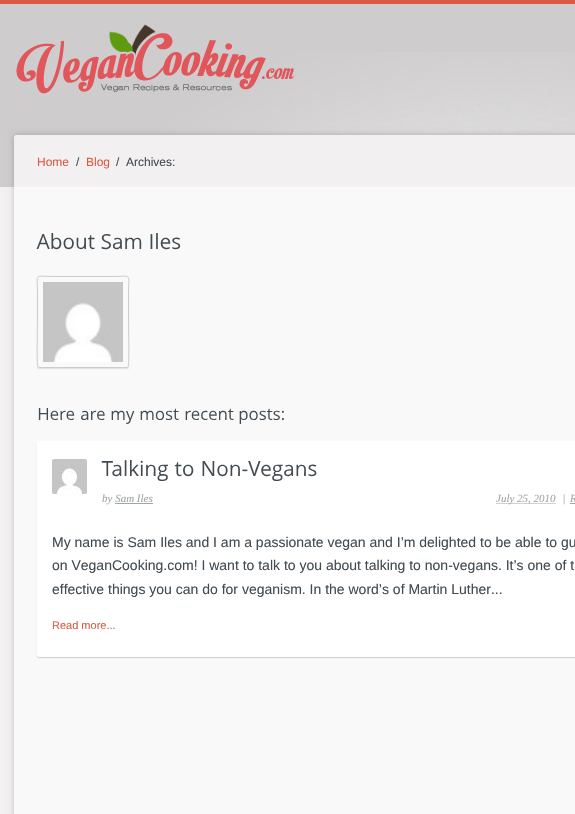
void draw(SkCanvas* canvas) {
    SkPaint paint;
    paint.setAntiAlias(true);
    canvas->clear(0xFFF2F0F0);
    paint.setColor(0xFFD95B44);
    canvas->drawRect(SkRect::MakeXYWH(0, 0, 575, 4), paint);
    paint.setColor(0xFFCECCCC);
    canvas->drawRect(SkRect::MakeXYWH(0, 4, 575, 183), paint);
    canvas->drawImageRect(SkImages::DeferredFromEncodedData(SkData::MakeFromFileName("img1.png")), SkRect::MakeXYWH(159, 52, 416, 83), SkSamplingOptions());
    canvas->drawImageRect(SkImages::DeferredFromEncodedData(SkData::MakeFromFileName("img2.png")), SkRect::MakeXYWH(16, 24, 278, 70), SkSamplingOptions());
    canvas->save();
    canvas->clipRect(SkRect::MakeXYWH(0, 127, 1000, 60));
    paint.setColor(0x33000000);
    paint.setMaskFilter(SkMaskFilter::MakeBlur(kNormal_SkBlurStyle, 3));
    canvas->drawRoundRect(SkRect::MakeXYWH(14, 135, 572, 57), 2, 2, paint);
    paint.setMaskFilter(nullptr);
    canvas->restore();
    paint.setColor(0xFFF2F0F0);
    canvas->drawPath(SkPathBuilder().moveTo(16, 135).lineTo(575, 135).cubicTo(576, 135, 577, 136, 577, 137).lineTo(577, 187).lineTo(14, 187).lineTo(14, 137).cubicTo(14, 136, 15, 135, 16, 135).close().detach(), paint);
    SkFont font1(fontMgr->matchFamilyStyle("Liberation Sans", SkFontStyle::Normal()), 12);
    font1.setSubpixel(true);
    paint.setColor(0xFFD95B44);
    canvas->drawString("Home", 37, 166, font1, paint);
    paint.setColor(0xFF414B52);
    canvas->drawString("/", 76, 166, font1, paint);
    paint.setColor(0xFFD95B44);
    canvas->drawString("Blog", 86, 166, font1, paint);
    paint.setColor(0xFF414B52);
    canvas->drawString("/  Archives:", 116, 166, font1, paint);
    canvas->save();
    canvas->clipRect(SkRect::MakeXYWH(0, 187, 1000, 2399));
    paint.setColor(0x33000000);
    paint.setMaskFilter(SkMaskFilter::MakeBlur(kNormal_SkBlurStyle, 3));
    canvas->drawRect(SkRect::MakeXYWH(14, 182, 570, 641), paint);
    paint.setMaskFilter(nullptr);
    canvas->restore();
    paint.setColor(0xFFFAF9F9);
    canvas->drawRect(SkRect::MakeXYWH(14, 187, 561, 627), paint);
    canvas->drawImageRect(SkImages::DeferredFromEncodedData(SkData::MakeFromFileName("img3.png")), SkRect::MakeXYWH(36, 233, 59, 17), SkSamplingOptions());
    canvas->drawImageRect(SkImages::DeferredFromEncodedData(SkData::MakeFromFileName("img4.png")), SkRect::MakeXYWH(101, 234, 41, 16), SkSamplingOptions());
    canvas->drawImageRect(SkImages::DeferredFromEncodedData(SkData::MakeFromFileName("img5.png")), SkRect::MakeXYWH(150, 233, 31, 17), SkSamplingOptions());
    canvas->save();
    canvas->clipPath(SkPathBuilder(SkPathFillType::kEvenOdd).moveTo(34, 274).lineTo(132, 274).lineTo(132, 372).lineTo(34, 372).close().moveTo(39, 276).lineTo(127, 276).cubicTo(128, 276, 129, 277, 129, 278).lineTo(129, 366).cubicTo(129, 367, 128, 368, 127, 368).lineTo(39, 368).cubicTo(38, 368, 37, 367, 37, 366).lineTo(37, 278).cubicTo(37, 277, 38, 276, 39, 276).close().detach(), true);
    paint.setColor(0x1A000000);
    paint.setMaskFilter(SkMaskFilter::MakeBlur(kNormal_SkBlurStyle, 0.5f));
    canvas->drawRoundRect(SkRect::MakeXYWH(37, 277, 92, 92), 2, 2, paint);
    paint.setMaskFilter(nullptr);
    canvas->restore();
    paint.setStyle(SkPaint::kStroke_Style);
    paint.setStrokeWidth(1);
    paint.setColor(0xFFCDCDCD);
    canvas->drawPath(SkPathBuilder().moveTo(128, 367).lineTo(127, 367.5f).lineTo(39, 367.5f).lineTo(38, 367).detach(), paint);
    paint.setColor(0xFFCCCCCC);
    canvas->drawPath(SkPathBuilder().moveTo(38, 367).cubicTo(36.5f, 365.5f, 37.5f, 326.5f, 37.5f, 322).lineTo(37.5f, 292.5f).cubicTo(37.5f, 272.5f, 33.5f, 276.5f, 53.5f, 276.5f).lineTo(112.5f, 276.5f).cubicTo(132.5f, 276.5f, 128.5f, 272.5f, 128.5f, 292.5f).lineTo(128.5f, 322).cubicTo(128.5f, 326.5f, 129.5f, 365.5f, 128, 367).detach(), paint);
    canvas->drawImageRect(SkImages::DeferredFromEncodedData(SkData::MakeFromFileName("img6.png")), SkRect::MakeXYWH(43, 282, 80, 80), SkSamplingOptions());
    canvas->drawImageRect(SkImages::DeferredFromEncodedData(SkData::MakeFromFileName("img7.png")), SkRect::MakeXYWH(38, 408, 37, 12), SkSamplingOptions());
    canvas->drawImageRect(SkImages::DeferredFromEncodedData(SkData::MakeFromFileName("img8.png")), SkRect::MakeXYWH(81, 410, 24, 10), SkSamplingOptions());
    canvas->drawImageRect(SkImages::DeferredFromEncodedData(SkData::MakeFromFileName("img9.png")), SkRect::MakeXYWH(111, 410, 24, 14), SkSamplingOptions());
    canvas->drawImageRect(SkImages::DeferredFromEncodedData(SkData::MakeFromFileName("img10.png")), SkRect::MakeXYWH(140, 408, 39, 12), SkSamplingOptions());
    canvas->drawImageRect(SkImages::DeferredFromEncodedData(SkData::MakeFromFileName("img11.png")), SkRect::MakeXYWH(185, 408, 49, 12), SkSamplingOptions());
    canvas->drawImageRect(SkImages::DeferredFromEncodedData(SkData::MakeFromFileName("img12.png")), SkRect::MakeXYWH(239, 408, 45, 16), SkSamplingOptions());
    paint.setStyle(SkPaint::kFill_Style);
    paint.setColor(0x2B000000);
    paint.setMaskFilter(SkMaskFilter::MakeBlur(kNormal_SkBlurStyle, 0.5f));
    canvas->drawRoundRect(SkRect::MakeXYWH(37, 442, 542, 216), 2, 2, paint);
    paint.setMaskFilter(nullptr);
    paint.setColor(0xFFFFFFFF);
    canvas->drawRoundRect(SkRect::MakeXYWH(37, 441, 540, 216), 2, 2, paint);
    canvas->drawImageRect(SkImages::DeferredFromEncodedData(SkData::MakeFromFileName("img13.png")), SkRect::MakeXYWH(52, 459, 35, 35), SkSamplingOptions());
    canvas->drawImageRect(SkImages::DeferredFromEncodedData(SkData::MakeFromFileName("img14.png")), SkRect::MakeXYWH(101, 460, 67, 21), SkSamplingOptions());
    canvas->drawImageRect(SkImages::DeferredFromEncodedData(SkData::MakeFromFileName("img15.png")), SkRect::MakeXYWH(174, 462, 20, 15), SkSamplingOptions());
    canvas->drawImageRect(SkImages::DeferredFromEncodedData(SkData::MakeFromFileName("img16.png")), SkRect::MakeXYWH(202, 461, 115, 20), SkSamplingOptions());
    SkFont font2(fontMgr->matchFamilyStyle("Liberation Serif", SkFontStyle::Italic()), 11);
    font2.setSubpixel(true);
    paint.setColor(0xFFA0A5A9);
    canvas->drawString("by Sam Iles", 102, 502, font2, paint);
    canvas->drawRect(SkRect::MakeXYWH(115, 503, 38, 1), paint);
    paint.setStyle(SkPaint::kStroke_Style);
    paint.setPathEffect(SkDashPathEffect::Make({{1, 1}}, 0));
    canvas->drawPath(SkPathBuilder().moveTo(496.5f, 503.5f).lineTo(556, 503.5f).detach(), paint);
    paint.setPathEffect(nullptr);
    paint.setStyle(SkPaint::kFill_Style);
    canvas->drawString("July 25, 2010", 496, 502, font2, paint);
    SkFont font3(fontMgr->matchFamilyStyle("Liberation Serif", SkFontStyle::Normal()), 11);
    font3.setSubpixel(true);
    canvas->drawString("|", 563, 502, font3, paint);
    canvas->drawString("R", 570, 502, font2, paint);
    canvas->drawRect(SkRect::MakeXYWH(570, 503, 5, 1), paint);
    SkFont font4(fontMgr->matchFamilyStyle("Liberation Sans", SkFontStyle::Normal()), 14);
    font4.setSubpixel(true);
    paint.setColor(0xFF414B52);
    canvas->drawString("My name is Sam Iles and I am a passionate vegan and I’m delighted to be able to gu", 52, 547, font4, paint);
    canvas->drawString("on VeganCooking.com! I want to talk to you about talking to non-vegans. It’s one of t", 52, 570, font4, paint);
    canvas->drawString("effective things you can do for veganism. In the word’s of Martin Luther...", 52, 594, font4, paint);
    SkFont font5(fontMgr->matchFamilyStyle("Liberation Sans", SkFontStyle::Normal()), 11);
    font5.setSubpixel(true);
    paint.setColor(0xFFD95B44);
    canvas->drawString("Read more...", 52, 629, font5, paint);
}
